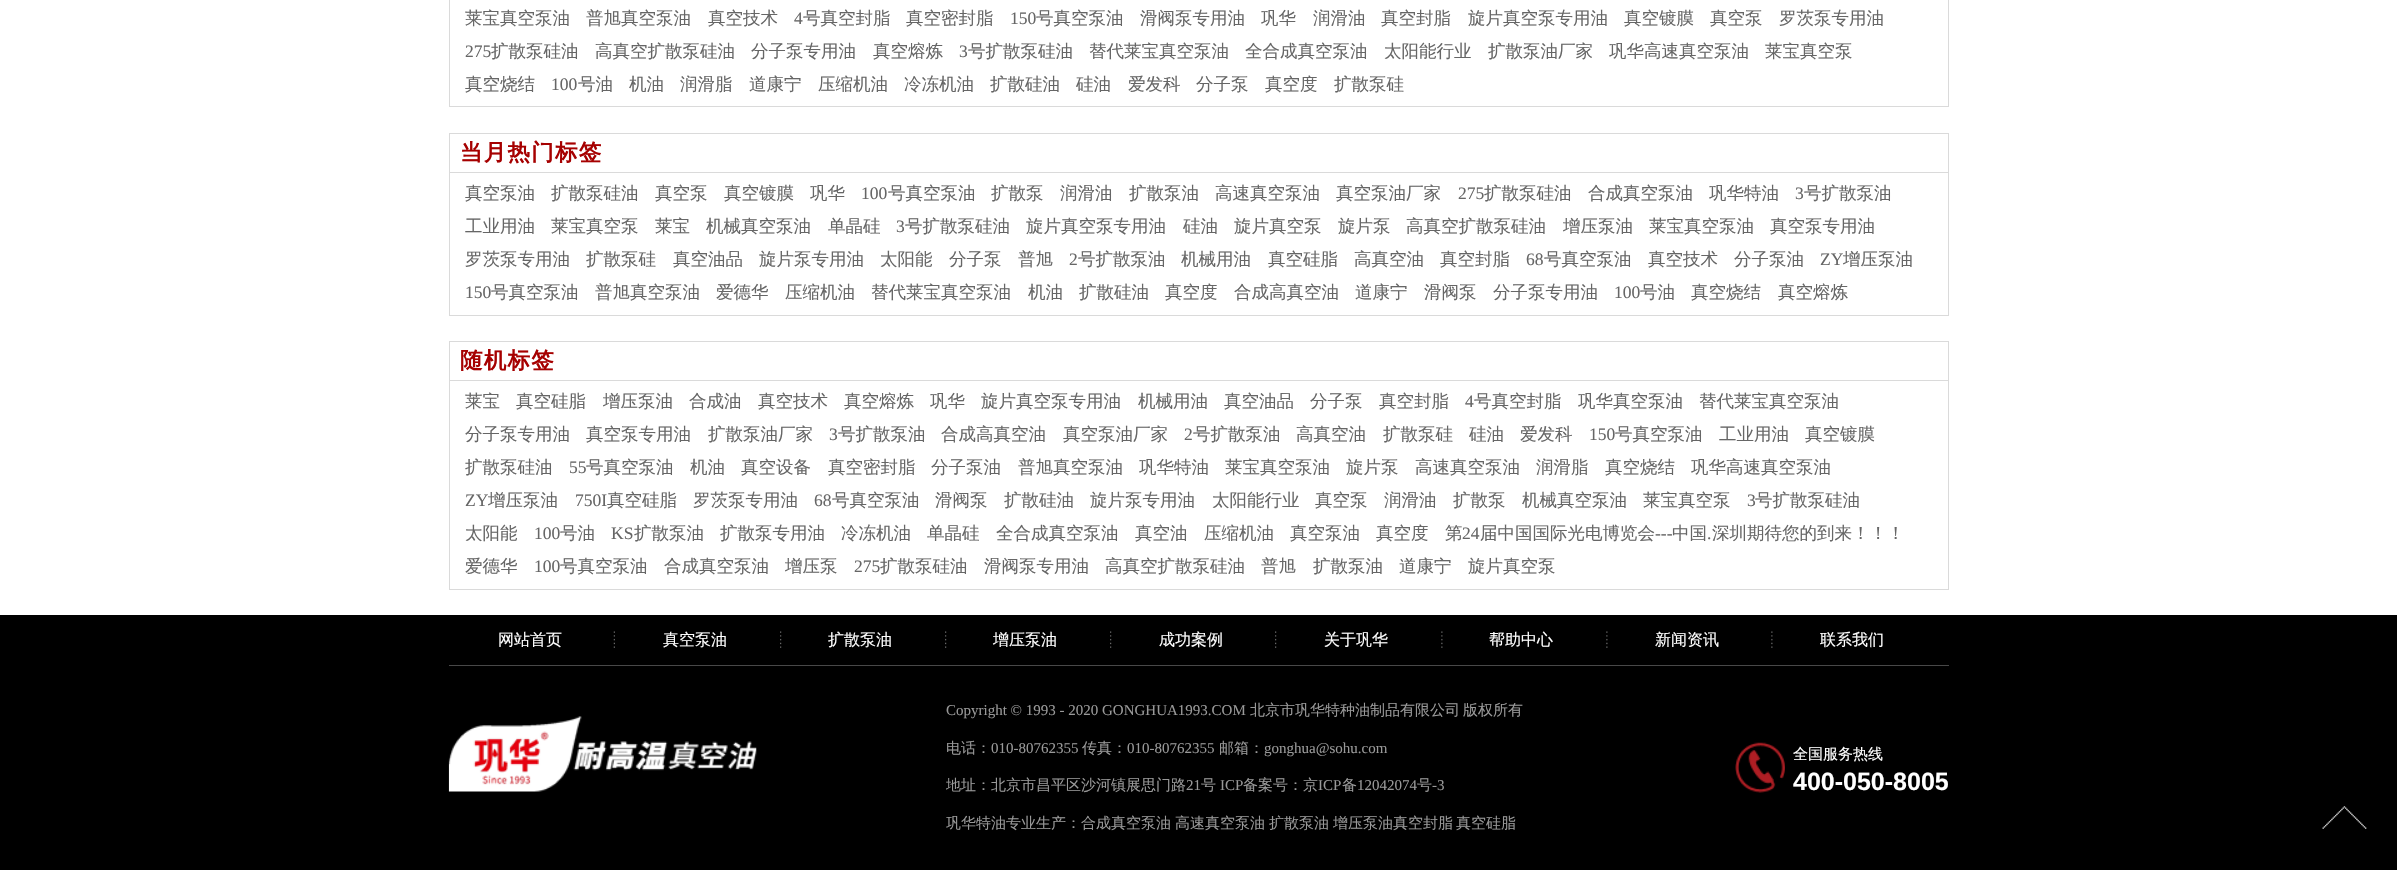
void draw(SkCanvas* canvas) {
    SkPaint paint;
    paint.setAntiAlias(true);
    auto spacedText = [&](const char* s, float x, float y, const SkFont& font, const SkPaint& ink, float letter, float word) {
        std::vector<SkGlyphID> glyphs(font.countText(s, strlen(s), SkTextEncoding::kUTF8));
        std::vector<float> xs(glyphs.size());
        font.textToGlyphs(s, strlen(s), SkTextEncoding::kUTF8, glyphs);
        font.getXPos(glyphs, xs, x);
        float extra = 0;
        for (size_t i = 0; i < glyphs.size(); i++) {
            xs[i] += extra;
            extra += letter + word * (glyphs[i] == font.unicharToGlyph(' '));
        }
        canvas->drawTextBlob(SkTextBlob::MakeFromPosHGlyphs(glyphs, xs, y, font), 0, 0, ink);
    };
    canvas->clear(0xFFFFFFFF);
    paint.setColor(0xFFDADADA);
    canvas->drawRect(SkRect::MakeXYWH(449, 106, 1500, 1), paint);
    canvas->drawRect(SkRect::MakeXYWH(1948, 0, 1, 106), paint);
    canvas->drawRect(SkRect::MakeXYWH(449, 0, 1, 106), paint);
    SkFont font1(fontMgr->matchFamilyStyle("WenQuanYi Zen Hei", SkFontStyle(500, SkFontStyle::kNormal_Width, SkFontStyle::kUpright_Slant)), 17.5f);
    font1.setSubpixel(true);
    paint.setColor(0xFF666666);
    canvas->drawString("莱宝真空泵油", 465, 24, font1, paint);
    canvas->drawString("普旭真空泵油", 586, 24, font1, paint);
    canvas->drawString("真空技术", 708, 24, font1, paint);
    SkFont font2(fontMgr->matchFamilyStyle("Liberation Serif", SkFontStyle::Normal()), 17.5f);
    font2.setSubpixel(true);
    canvas->drawString("4", 794, 24, font2, paint);
    canvas->drawString("号真空封脂", 803, 24, font1, paint);
    canvas->drawString("真空密封脂", 906, 24, font1, paint);
    canvas->drawString("150", 1010, 24, font2, paint);
    canvas->drawString("号真空泵油", 1036, 24, font1, paint);
    canvas->drawString("滑阀泵专用油", 1140, 24, font1, paint);
    canvas->drawString("巩华", 1261, 24, font1, paint);
    canvas->drawString("润滑油", 1313, 24, font1, paint);
    canvas->drawString("真空封脂", 1381, 24, font1, paint);
    canvas->drawString("旋片真空泵专用油", 1468, 24, font1, paint);
    canvas->drawString("真空镀膜", 1624, 24, font1, paint);
    canvas->drawString("真空泵", 1710, 24, font1, paint);
    canvas->drawString("罗茨泵专用油", 1779, 24, font1, paint);
    canvas->drawString("275", 465, 57, font2, paint);
    canvas->drawString("扩散泵硅油", 491, 57, font1, paint);
    canvas->drawString("高真空扩散泵硅油", 595, 57, font1, paint);
    canvas->drawString("分子泵专用油", 751, 57, font1, paint);
    canvas->drawString("真空熔炼", 873, 57, font1, paint);
    canvas->drawString("3", 959, 57, font2, paint);
    canvas->drawString("号扩散泵硅油", 968, 57, font1, paint);
    canvas->drawString("替代莱宝真空泵油", 1089, 57, font1, paint);
    canvas->drawString("全合成真空泵油", 1245, 57, font1, paint);
    canvas->drawString("太阳能行业", 1384, 57, font1, paint);
    canvas->drawString("扩散泵油厂家", 1488, 57, font1, paint);
    canvas->drawString("巩华高速真空泵油", 1609, 57, font1, paint);
    canvas->drawString("莱宝真空泵", 1765, 57, font1, paint);
    canvas->drawString("真空烧结", 465, 90, font1, paint);
    canvas->drawString("100", 551, 90, font2, paint);
    canvas->drawString("号油", 578, 90, font1, paint);
    canvas->drawString("机油", 629, 90, font1, paint);
    canvas->drawString("润滑脂", 680, 90, font1, paint);
    canvas->drawString("道康宁", 749, 90, font1, paint);
    canvas->drawString("压缩机油", 818, 90, font1, paint);
    canvas->drawString("冷冻机油", 904, 90, font1, paint);
    canvas->drawString("扩散硅油", 990, 90, font1, paint);
    canvas->drawString("硅油", 1076, 90, font1, paint);
    canvas->drawString("爱发科", 1128, 90, font1, paint);
    canvas->drawString("分子泵", 1196, 90, font1, paint);
    canvas->drawString("真空度", 1265, 90, font1, paint);
    canvas->drawString("扩散泵硅", 1334, 90, font1, paint);
    paint.setColor(0xFFDADADA);
    canvas->drawRect(SkRect::MakeXYWH(449, 315, 1500, 1), paint);
    paint.setStyle(SkPaint::kStroke_Style);
    paint.setStrokeWidth(1);
    canvas->drawRect(SkRect::MakeXYWH(449.5f, 133.5f, 1499, 39), paint);
    SkFont font3(fontMgr->matchFamilyStyle("WenQuanYi Zen Hei", SkFontStyle::Bold()), 22.5f);
    font3.setSubpixel(true);
    paint.setStyle(SkPaint::kFill_Style);
    paint.setColor(0xFFA60000);
    spacedText("当月热门标签", 460, 160, font3, paint, 1.25f, 0);
    paint.setColor(0xFFDADADA);
    canvas->drawRect(SkRect::MakeXYWH(1948, 173, 1, 142), paint);
    canvas->drawRect(SkRect::MakeXYWH(449, 173, 1, 142), paint);
    paint.setColor(0xFF666666);
    canvas->drawString("真空泵油", 465, 199, font1, paint);
    canvas->drawString("扩散泵硅油", 551, 199, font1, paint);
    canvas->drawString("真空泵", 655, 199, font1, paint);
    canvas->drawString("真空镀膜", 724, 199, font1, paint);
    canvas->drawString("巩华", 810, 199, font1, paint);
    canvas->drawString("100", 861, 199, font2, paint);
    canvas->drawString("号真空泵油", 888, 199, font1, paint);
    canvas->drawString("扩散泵", 991, 199, font1, paint);
    canvas->drawString("润滑油", 1060, 199, font1, paint);
    canvas->drawString("扩散泵油", 1129, 199, font1, paint);
    canvas->drawString("高速真空泵油", 1215, 199, font1, paint);
    canvas->drawString("真空泵油厂家", 1336, 199, font1, paint);
    canvas->drawString("275", 1458, 199, font2, paint);
    canvas->drawString("扩散泵硅油", 1484, 199, font1, paint);
    canvas->drawString("合成真空泵油", 1588, 199, font1, paint);
    canvas->drawString("巩华特油", 1709, 199, font1, paint);
    canvas->drawString("3", 1795, 199, font2, paint);
    canvas->drawString("号扩散泵油", 1804, 199, font1, paint);
    canvas->drawString("工业用油", 465, 232, font1, paint);
    canvas->drawString("莱宝真空泵", 551, 232, font1, paint);
    canvas->drawString("莱宝", 655, 232, font1, paint);
    canvas->drawString("机械真空泵油", 706, 232, font1, paint);
    canvas->drawString("单晶硅", 828, 232, font1, paint);
    canvas->drawString("3", 896, 232, font2, paint);
    canvas->drawString("号扩散泵硅油", 905, 232, font1, paint);
    canvas->drawString("旋片真空泵专用油", 1026, 232, font1, paint);
    canvas->drawString("硅油", 1183, 232, font1, paint);
    canvas->drawString("旋片真空泵", 1234, 232, font1, paint);
    canvas->drawString("旋片泵", 1338, 232, font1, paint);
    canvas->drawString("高真空扩散泵硅油", 1406, 232, font1, paint);
    canvas->drawString("增压泵油", 1563, 232, font1, paint);
    canvas->drawString("莱宝真空泵油", 1649, 232, font1, paint);
    canvas->drawString("真空泵专用油", 1770, 232, font1, paint);
    canvas->drawString("罗茨泵专用油", 465, 265, font1, paint);
    canvas->drawString("扩散泵硅", 586, 265, font1, paint);
    canvas->drawString("真空油品", 673, 265, font1, paint);
    canvas->drawString("旋片泵专用油", 759, 265, font1, paint);
    canvas->drawString("太阳能", 880, 265, font1, paint);
    canvas->drawString("分子泵", 949, 265, font1, paint);
    canvas->drawString("普旭", 1018, 265, font1, paint);
    canvas->drawString("2", 1069, 265, font2, paint);
    canvas->drawString("号扩散泵油", 1078, 265, font1, paint);
    canvas->drawString("机械用油", 1181, 265, font1, paint);
    canvas->drawString("真空硅脂", 1268, 265, font1, paint);
    canvas->drawString("高真空油", 1354, 265, font1, paint);
    canvas->drawString("真空封脂", 1440, 265, font1, paint);
    canvas->drawString("68", 1526, 265, font2, paint);
    canvas->drawString("号真空泵油", 1544, 265, font1, paint);
    canvas->drawString("真空技术", 1648, 265, font1, paint);
    canvas->drawString("分子泵油", 1734, 265, font1, paint);
    canvas->drawString("ZY", 1820, 265, font2, paint);
    canvas->drawString("增压泵油", 1843, 265, font1, paint);
    canvas->drawString("150", 465, 298, font2, paint);
    canvas->drawString("号真空泵油", 491, 298, font1, paint);
    canvas->drawString("普旭真空泵油", 595, 298, font1, paint);
    canvas->drawString("爱德华", 716, 298, font1, paint);
    canvas->drawString("压缩机油", 785, 298, font1, paint);
    canvas->drawString("替代莱宝真空泵油", 871, 298, font1, paint);
    canvas->drawString("机油", 1028, 298, font1, paint);
    canvas->drawString("扩散硅油", 1079, 298, font1, paint);
    canvas->drawString("真空度", 1165, 298, font1, paint);
    canvas->drawString("合成高真空油", 1234, 298, font1, paint);
    canvas->drawString("道康宁", 1355, 298, font1, paint);
    canvas->drawString("滑阀泵", 1424, 298, font1, paint);
    canvas->drawString("分子泵专用油", 1493, 298, font1, paint);
    canvas->drawString("100", 1614, 298, font2, paint);
    canvas->drawString("号油", 1640, 298, font1, paint);
    canvas->drawString("真空烧结", 1691, 298, font1, paint);
    canvas->drawString("真空熔炼", 1778, 298, font1, paint);
    paint.setColor(0xFFDADADA);
    canvas->drawRect(SkRect::MakeXYWH(449, 589, 1500, 1), paint);
    paint.setStyle(SkPaint::kStroke_Style);
    canvas->drawRect(SkRect::MakeXYWH(449.5f, 341.5f, 1499, 39), paint);
    paint.setStyle(SkPaint::kFill_Style);
    paint.setColor(0xFFA60000);
    spacedText("随机标签", 460, 368, font3, paint, 1.25f, 0);
    paint.setColor(0xFFDADADA);
    canvas->drawRect(SkRect::MakeXYWH(1948, 381, 1, 208), paint);
    canvas->drawRect(SkRect::MakeXYWH(449, 381, 1, 208), paint);
    paint.setColor(0xFF666666);
    canvas->drawString("莱宝", 465, 407, font1, paint);
    canvas->drawString("真空硅脂", 516, 407, font1, paint);
    canvas->drawString("增压泵油", 603, 407, font1, paint);
    canvas->drawString("合成油", 689, 407, font1, paint);
    canvas->drawString("真空技术", 758, 407, font1, paint);
    canvas->drawString("真空熔炼", 844, 407, font1, paint);
    canvas->drawString("巩华", 930, 407, font1, paint);
    canvas->drawString("旋片真空泵专用油", 981, 407, font1, paint);
    canvas->drawString("机械用油", 1138, 407, font1, paint);
    canvas->drawString("真空油品", 1224, 407, font1, paint);
    canvas->drawString("分子泵", 1310, 407, font1, paint);
    canvas->drawString("真空封脂", 1379, 407, font1, paint);
    canvas->drawString("4", 1465, 407, font2, paint);
    canvas->drawString("号真空封脂", 1474, 407, font1, paint);
    canvas->drawString("巩华真空泵油", 1578, 407, font1, paint);
    canvas->drawString("替代莱宝真空泵油", 1699, 407, font1, paint);
    canvas->drawString("分子泵专用油", 465, 440, font1, paint);
    canvas->drawString("真空泵专用油", 586, 440, font1, paint);
    canvas->drawString("扩散泵油厂家", 708, 440, font1, paint);
    canvas->drawString("3", 829, 440, font2, paint);
    canvas->drawString("号扩散泵油", 838, 440, font1, paint);
    canvas->drawString("合成高真空油", 941, 440, font1, paint);
    canvas->drawString("真空泵油厂家", 1063, 440, font1, paint);
    canvas->drawString("2", 1184, 440, font2, paint);
    canvas->drawString("号扩散泵油", 1193, 440, font1, paint);
    canvas->drawString("高真空油", 1296, 440, font1, paint);
    canvas->drawString("扩散泵硅", 1383, 440, font1, paint);
    canvas->drawString("硅油", 1469, 440, font1, paint);
    canvas->drawString("爱发科", 1520, 440, font1, paint);
    canvas->drawString("150", 1589, 440, font2, paint);
    canvas->drawString("号真空泵油", 1615, 440, font1, paint);
    canvas->drawString("工业用油", 1719, 440, font1, paint);
    canvas->drawString("真空镀膜", 1805, 440, font1, paint);
    canvas->drawString("扩散泵硅油", 465, 473, font1, paint);
    canvas->drawString("55", 569, 473, font2, paint);
    canvas->drawString("号真空泵油", 586, 473, font1, paint);
    canvas->drawString("机油", 690, 473, font1, paint);
    canvas->drawString("真空设备", 741, 473, font1, paint);
    canvas->drawString("真空密封脂", 828, 473, font1, paint);
    canvas->drawString("分子泵油", 931, 473, font1, paint);
    canvas->drawString("普旭真空泵油", 1018, 473, font1, paint);
    canvas->drawString("巩华特油", 1139, 473, font1, paint);
    canvas->drawString("莱宝真空泵油", 1225, 473, font1, paint);
    canvas->drawString("旋片泵", 1346, 473, font1, paint);
    canvas->drawString("高速真空泵油", 1415, 473, font1, paint);
    canvas->drawString("润滑脂", 1536, 473, font1, paint);
    canvas->drawString("真空烧结", 1605, 473, font1, paint);
    canvas->drawString("巩华高速真空泵油", 1691, 473, font1, paint);
    canvas->drawString("ZY", 465, 506, font2, paint);
    canvas->drawString("增压泵油", 488, 506, font1, paint);
    canvas->drawString("750I", 575, 506, font2, paint);
    canvas->drawString("真空硅脂", 607, 506, font1, paint);
    canvas->drawString("罗茨泵专用油", 693, 506, font1, paint);
    canvas->drawString("68", 814, 506, font2, paint);
    canvas->drawString("号真空泵油", 832, 506, font1, paint);
    canvas->drawString("滑阀泵", 935, 506, font1, paint);
    canvas->drawString("扩散硅油", 1004, 506, font1, paint);
    canvas->drawString("旋片泵专用油", 1090, 506, font1, paint);
    canvas->drawString("太阳能行业", 1212, 506, font1, paint);
    canvas->drawString("真空泵", 1315, 506, font1, paint);
    canvas->drawString("润滑油", 1384, 506, font1, paint);
    canvas->drawString("扩散泵", 1453, 506, font1, paint);
    canvas->drawString("机械真空泵油", 1522, 506, font1, paint);
    canvas->drawString("莱宝真空泵", 1643, 506, font1, paint);
    canvas->drawString("3", 1747, 506, font2, paint);
    canvas->drawString("号扩散泵硅油", 1755, 506, font1, paint);
    canvas->drawString("太阳能", 465, 539, font1, paint);
    canvas->drawString("100", 534, 539, font2, paint);
    canvas->drawString("号油", 560, 539, font1, paint);
    canvas->drawString("KS", 611, 539, font2, paint);
    canvas->drawString("扩散泵油", 634, 539, font1, paint);
    canvas->drawString("扩散泵专用油", 720, 539, font1, paint);
    canvas->drawString("冷冻机油", 841, 539, font1, paint);
    canvas->drawString("单晶硅", 927, 539, font1, paint);
    canvas->drawString("全合成真空泵油", 996, 539, font1, paint);
    canvas->drawString("真空油", 1135, 539, font1, paint);
    canvas->drawString("压缩机油", 1204, 539, font1, paint);
    canvas->drawString("真空泵油", 1290, 539, font1, paint);
    canvas->drawString("真空度", 1376, 539, font1, paint);
    canvas->drawString("第", 1445, 539, font1, paint);
    canvas->drawString("24", 1462, 539, font2, paint);
    canvas->drawString("届中国国际光电博览会", 1480, 539, font1, paint);
    canvas->drawString("---", 1655, 539, font2, paint);
    canvas->drawString("中国", 1672, 539, font1, paint);
    canvas->drawString("深圳期待您的到来！！！", 1712, 539, font1, paint);
    canvas->drawString(".", 1707, 539, font2, paint);
    canvas->drawString("爱德华", 465, 572, font1, paint);
    canvas->drawString("100", 534, 572, font2, paint);
    canvas->drawString("号真空泵油", 560, 572, font1, paint);
    canvas->drawString("合成真空泵油", 664, 572, font1, paint);
    canvas->drawString("增压泵", 785, 572, font1, paint);
    canvas->drawString("275", 854, 572, font2, paint);
    canvas->drawString("扩散泵硅油", 880, 572, font1, paint);
    canvas->drawString("滑阀泵专用油", 984, 572, font1, paint);
    canvas->drawString("高真空扩散泵硅油", 1105, 572, font1, paint);
    canvas->drawString("普旭", 1261, 572, font1, paint);
    canvas->drawString("扩散泵油", 1313, 572, font1, paint);
    canvas->drawString("道康宁", 1399, 572, font1, paint);
    canvas->drawString("旋片真空泵", 1468, 572, font1, paint);
    paint.setColor(0xFF000000);
    canvas->drawRect(SkRect::MakeXYWH(0, 615, 2397, 255), paint);
    SkFont font4(fontMgr->matchFamilyStyle("WenQuanYi Zen Hei", SkFontStyle(500, SkFontStyle::kNormal_Width, SkFontStyle::kUpright_Slant)), 16);
    font4.setSubpixel(true);
    paint.setColor(0xFFFFFFFF);
    canvas->drawString("网站首页", 498, 645, font4, paint);
    canvas->drawImageRect(SkImages::DeferredFromEncodedData(SkData::MakeFromFileName("img1.png")), SkRect::MakeXYWH(613, 631, 2, 17), SkSamplingOptions());
    canvas->drawString("真空泵油", 663, 645, font4, paint);
    canvas->drawImageRect(SkImages::DeferredFromEncodedData(SkData::MakeFromFileName("img2.png")), SkRect::MakeXYWH(780, 631, 2, 17), SkSamplingOptions());
    canvas->drawString("扩散泵油", 828, 645, font4, paint);
    canvas->drawImageRect(SkImages::DeferredFromEncodedData(SkData::MakeFromFileName("img2.png")), SkRect::MakeXYWH(945, 631, 2, 17), SkSamplingOptions());
    canvas->drawString("增压泵油", 993, 645, font4, paint);
    canvas->drawImageRect(SkImages::DeferredFromEncodedData(SkData::MakeFromFileName("img2.png")), SkRect::MakeXYWH(1110, 631, 2, 17), SkSamplingOptions());
    canvas->drawString("成功案例", 1159, 645, font4, paint);
    canvas->drawImageRect(SkImages::DeferredFromEncodedData(SkData::MakeFromFileName("img2.png")), SkRect::MakeXYWH(1275, 631, 2, 17), SkSamplingOptions());
    canvas->drawString("关于巩华", 1324, 645, font4, paint);
    canvas->drawImageRect(SkImages::DeferredFromEncodedData(SkData::MakeFromFileName("img3.png")), SkRect::MakeXYWH(1441, 631, 2, 17), SkSamplingOptions());
    canvas->drawString("帮助中心", 1489, 645, font4, paint);
    canvas->drawImageRect(SkImages::DeferredFromEncodedData(SkData::MakeFromFileName("img3.png")), SkRect::MakeXYWH(1606, 631, 2, 17), SkSamplingOptions());
    canvas->drawString("新闻资讯", 1655, 645, font4, paint);
    canvas->drawImageRect(SkImages::DeferredFromEncodedData(SkData::MakeFromFileName("img3.png")), SkRect::MakeXYWH(1771, 631, 2, 17), SkSamplingOptions());
    canvas->drawString("联系我们", 1820, 645, font4, paint);
    canvas->drawImageRect(SkImages::DeferredFromEncodedData(SkData::MakeFromFileName("img4.png")), SkRect::MakeXYWH(448, 716, 309, 76), SkSamplingOptions());
    paint.setColor(0xFF484848);
    canvas->drawRect(SkRect::MakeXYWH(449, 665, 1500, 1), paint);
    SkFont font5(fontMgr->matchFamilyStyle("Liberation Serif", SkFontStyle::Normal()), 15);
    font5.setSubpixel(true);
    paint.setColor(0xFF999999);
    canvas->drawString("Copyright © 1993 - 2020 GONGHUA1993.COM", 946, 715, font5, paint);
    SkFont font6(fontMgr->matchFamilyStyle("WenQuanYi Zen Hei", SkFontStyle(500, SkFontStyle::kNormal_Width, SkFontStyle::kUpright_Slant)), 15);
    font6.setSubpixel(true);
    canvas->drawString("北京市巩华特种油制品有限公司", 1250, 715, font6, paint);
    canvas->drawString("版权所有", 1463, 715, font6, paint);
    canvas->drawString("电话：", 946, 753, font6, paint);
    canvas->drawString("010-80762355", 991, 753, font5, paint);
    canvas->drawString("传真：", 1082, 753, font6, paint);
    canvas->drawString("010-80762355", 1127, 753, font5, paint);
    canvas->drawString("邮箱：", 1219, 753, font6, paint);
    canvas->drawString("gonghua@sohu.com", 1264, 753, font5, paint);
    canvas->drawString("地址：北京市昌平区沙河镇展思门路", 946, 790, font6, paint);
    canvas->drawString("21", 1186, 790, font5, paint);
    canvas->drawString("号", 1201, 790, font6, paint);
    canvas->drawString("ICP", 1220, 790, font5, paint);
    canvas->drawString("备案号：京", 1243, 790, font6, paint);
    canvas->drawString("ICP", 1318, 790, font5, paint);
    canvas->drawString("备", 1342, 790, font6, paint);
    canvas->drawString("12042074", 1357, 790, font5, paint);
    canvas->drawString("号", 1417, 790, font6, paint);
    canvas->drawString("-3", 1432, 790, font5, paint);
    canvas->drawString("巩华特油专业生产：合成真空泵油", 946, 828, font6, paint);
    canvas->drawString("高速真空泵油", 1175, 828, font6, paint);
    canvas->drawString("扩散泵油", 1269, 828, font6, paint);
    canvas->drawString("增压泵油真空封脂", 1333, 828, font6, paint);
    canvas->drawString("真空硅脂", 1456, 828, font6, paint);
    canvas->drawImageRect(SkImages::DeferredFromEncodedData(SkData::MakeFromFileName("img5.png")), SkRect::MakeXYWH(1735, 742, 50, 51), SkSamplingOptions());
    paint.setColor(0xFFFFFFFF);
    canvas->drawString("全国服务热线", 1793, 759, font6, paint);
    SkFont font7(fontMgr->matchFamilyStyle("Liberation Sans", SkFontStyle::Bold()), 25);
    font7.setSubpixel(true);
    canvas->drawString("400-050-8005", 1793, 790, font7, paint);
    canvas->drawImageRect(SkImages::DeferredFromEncodedData(SkData::MakeFromFileName("img6.png")), SkRect::MakeXYWH(2322, 806, 45, 23), SkSamplingOptions());
}
